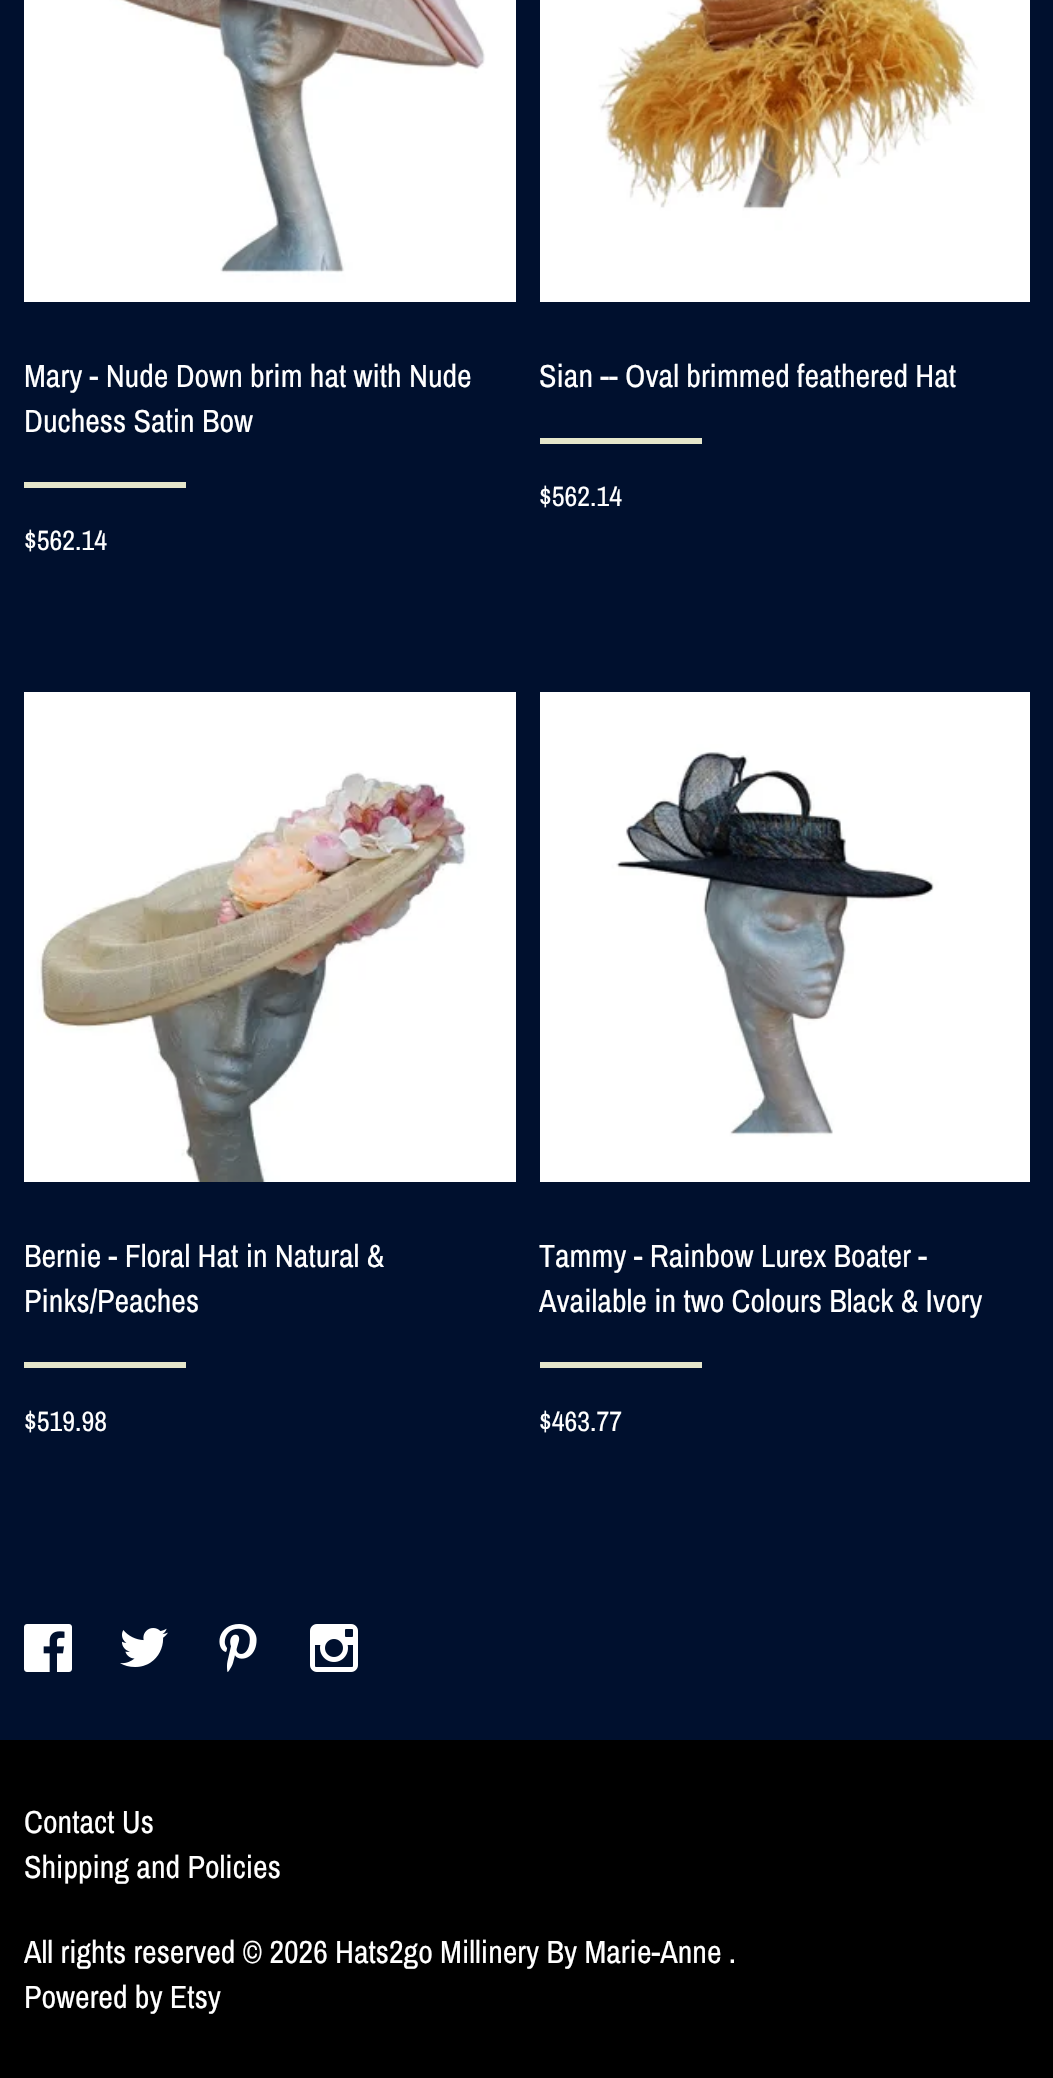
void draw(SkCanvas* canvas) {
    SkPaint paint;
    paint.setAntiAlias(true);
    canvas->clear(0xFF00102E);
    canvas->drawImageRect(SkImages::DeferredFromEncodedData(SkData::MakeFromFileName("img1.png")), SkRect::MakeXYWH(24, 0, 492, 302), SkSamplingOptions());
    SkFont font1(fontMgr->matchFamilyStyle("Archivo Narrow", SkFontStyle::Normal()), 32);
    font1.setSubpixel(true);
    paint.setColor(0xFFFFFFFF);
    canvas->drawString("Mary - Nude Down brim hat with Nude", 24, 387, font1, paint);
    canvas->drawString("Duchess Satin Bow", 24, 432, font1, paint);
    paint.setColor(0xFFE5E6CB);
    canvas->drawRect(SkRect::MakeXYWH(24, 482, 162, 6), paint);
    SkFont font2(fontMgr->matchFamilyStyle("Archivo Narrow", SkFontStyle::Normal()), 28);
    font2.setSubpixel(true);
    paint.setColor(0xFFFFFFFF);
    canvas->drawString("$562.14", 24, 550, font2, paint);
    canvas->drawImageRect(SkImages::DeferredFromEncodedData(SkData::MakeFromFileName("img2.png")), SkRect::MakeXYWH(540, 0, 490, 302), SkSamplingOptions());
    canvas->drawString("Sian -- Oval brimmed feathered Hat", 539, 387, font1, paint);
    paint.setColor(0xFFE5E6CB);
    canvas->drawRect(SkRect::MakeXYWH(540, 438, 162, 6), paint);
    paint.setColor(0xFFFFFFFF);
    canvas->drawString("$562.14", 539, 506, font2, paint);
    canvas->drawImageRect(SkImages::DeferredFromEncodedData(SkData::MakeFromFileName("img3.png")), SkRect::MakeXYWH(24, 692, 492, 490), SkSamplingOptions());
    canvas->drawString("Bernie - Floral Hat in Natural &", 24, 1267, font1, paint);
    canvas->drawString("Pinks/Peaches", 24, 1312, font1, paint);
    paint.setColor(0xFFE5E6CB);
    canvas->drawRect(SkRect::MakeXYWH(24, 1362, 162, 6), paint);
    paint.setColor(0xFFFFFFFF);
    canvas->drawString("$519.98", 24, 1431, font2, paint);
    canvas->drawImageRect(SkImages::DeferredFromEncodedData(SkData::MakeFromFileName("img4.png")), SkRect::MakeXYWH(540, 692, 490, 490), SkSamplingOptions());
    canvas->drawString("Tammy - Rainbow Lurex Boater -", 539, 1267, font1, paint);
    canvas->drawString("Available in two Colours Black & Ivory", 539, 1312, font1, paint);
    paint.setColor(0xFFE5E6CB);
    canvas->drawRect(SkRect::MakeXYWH(540, 1362, 162, 6), paint);
    paint.setColor(0xFFFFFFFF);
    canvas->drawString("$463.77", 539, 1431, font2, paint);
    canvas->drawImageRect(SkImages::DeferredFromEncodedData(SkData::MakeFromFileName("img5.png")), SkRect::MakeXYWH(24, 1624, 48, 48), SkSamplingOptions());
    canvas->drawImageRect(SkImages::DeferredFromEncodedData(SkData::MakeFromFileName("img6.png")), SkRect::MakeXYWH(120, 1628, 48, 39), SkSamplingOptions());
    canvas->drawImageRect(SkImages::DeferredFromEncodedData(SkData::MakeFromFileName("img7.png")), SkRect::MakeXYWH(219, 1624, 38, 48), SkSamplingOptions());
    canvas->drawImageRect(SkImages::DeferredFromEncodedData(SkData::MakeFromFileName("img8.png")), SkRect::MakeXYWH(310, 1624, 48, 48), SkSamplingOptions());
    paint.setColor(0xFF000000);
    canvas->drawRect(SkRect::MakeXYWH(0, 1740, 1053, 338), paint);
    paint.setColor(0xFFFFFFFF);
    canvas->drawString("Contact Us", 24, 1833, font1, paint);
    canvas->drawString("Shipping and Policies", 24, 1878, font1, paint);
    canvas->drawString("All rights reserved © 2026 Hats2go Millinery By Marie-Anne .", 24, 1963, font1, paint);
    canvas->drawString("Powered by Etsy", 24, 2008, font1, paint);
}
